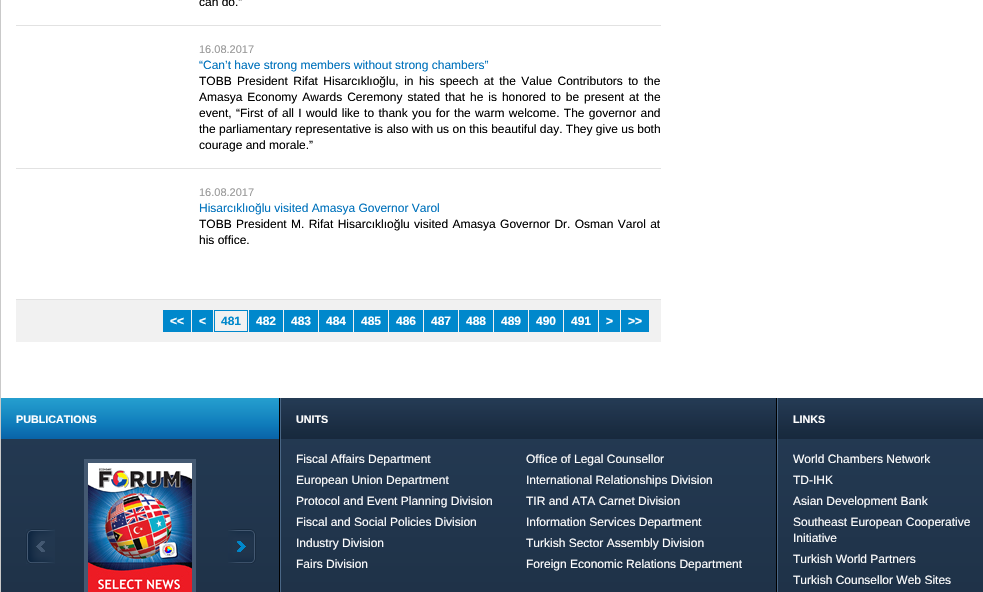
void draw(SkCanvas* canvas) {
    SkPaint paint;
    paint.setAntiAlias(true);
    auto spacedText = [&](const char* s, float x, float y, const SkFont& font, const SkPaint& ink, float letter, float word) {
        std::vector<SkGlyphID> glyphs(font.countText(s, strlen(s), SkTextEncoding::kUTF8));
        std::vector<float> xs(glyphs.size());
        font.textToGlyphs(s, strlen(s), SkTextEncoding::kUTF8, glyphs);
        font.getXPos(glyphs, xs, x);
        float extra = 0;
        for (size_t i = 0; i < glyphs.size(); i++) {
            xs[i] += extra;
            extra += letter + word * (glyphs[i] == font.unicharToGlyph(' '));
        }
        canvas->drawTextBlob(SkTextBlob::MakeFromPosHGlyphs(glyphs, xs, y, font), 0, 0, ink);
    };
    canvas->clear(0xFFFFFFFF);
    paint.setStyle(SkPaint::kStroke_Style);
    paint.setStrokeWidth(1);
    paint.setColor(0xFFC9C9C9);
    canvas->drawRect(SkRect::MakeXYWH(0.5f, -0.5f, 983, 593), paint);
    paint.setStyle(SkPaint::kFill_Style);
    paint.setColor(0xFFE2E2E2);
    canvas->drawRect(SkRect::MakeXYWH(16, 25, 645, 1), paint);
    SkFont font1(fontMgr->matchFamilyStyle("Liberation Sans", SkFontStyle::Normal()), 12);
    font1.setSubpixel(true);
    paint.setColor(0xFF000000);
    canvas->drawString("can do.”", 199, 6, font1, paint);
    paint.setColor(0xFFE2E2E2);
    canvas->drawRect(SkRect::MakeXYWH(16, 168, 645, 1), paint);
    SkFont font2(fontMgr->matchFamilyStyle("Liberation Sans", SkFontStyle::Normal()), 11);
    font2.setSubpixel(true);
    paint.setColor(0xFF999999);
    canvas->drawString("16.08.2017", 199, 53, font2, paint);
    paint.setColor(0xFF0072BC);
    canvas->drawString("“Can’t have strong members without strong chambers”", 199, 69, font1, paint);
    paint.setColor(0xFF000000);
    spacedText("TOBB President Rifat Hisarcıklıoğlu, in his speech at the Value Contributors to the", 199, 85, font1, paint, 0, 2.1f);
    spacedText("Amasya Economy Awards Ceremony stated that he is honored to be present at the", 199, 101, font1, paint, 0, 1.6f);
    spacedText("event, “First of all I would like to thank you for the warm welcome. The governor and", 199, 117, font1, paint, 0, 1);
    canvas->drawString("the parliamentary representative is also with us on this beautiful day. They give us both", 199, 133, font1, paint);
    canvas->drawString("courage and morale.”", 199, 149, font1, paint);
    paint.setColor(0xFFE2E2E2);
    canvas->drawRect(SkRect::MakeXYWH(16, 299, 645, 1), paint);
    paint.setColor(0xFF999999);
    canvas->drawString("16.08.2017", 199, 196, font2, paint);
    paint.setColor(0xFF0072BC);
    canvas->drawString("Hisarcıklıoğlu visited Amasya Governor Varol", 199, 212, font1, paint);
    paint.setColor(0xFF000000);
    spacedText("TOBB President M. Rifat Hisarcıklıoğlu visited Amasya Governor Dr. Osman Varol at", 199, 228, font1, paint, 0, 1);
    canvas->drawString("his office.", 199, 244, font1, paint);
    paint.setColor(0xFFF1F1F1);
    canvas->drawRect(SkRect::MakeXYWH(16, 300, 645, 42), paint);
    paint.setColor(0xFF0088CC);
    canvas->drawRect(SkRect::MakeXYWH(163, 310, 28, 22), paint);
    SkFont font3(fontMgr->matchFamilyStyle("Liberation Sans", SkFontStyle::Bold()), 12);
    font3.setSubpixel(true);
    paint.setColor(0xFFFFFFFF);
    canvas->drawString("<<", 170, 325, font3, paint);
    paint.setColor(0xFF0088CC);
    canvas->drawRect(SkRect::MakeXYWH(192, 310, 21, 22), paint);
    paint.setColor(0xFFFFFFFF);
    canvas->drawString("<", 199, 325, font3, paint);
    paint.setStyle(SkPaint::kStroke_Style);
    paint.setColor(0xFF0088CC);
    canvas->drawRect(SkRect::MakeXYWH(214.5f, 310.5f, 33, 21), paint);
    paint.setStyle(SkPaint::kFill_Style);
    canvas->drawString("481", 221, 325, font3, paint);
    canvas->drawRect(SkRect::MakeXYWH(249, 310, 34, 22), paint);
    paint.setColor(0xFFFFFFFF);
    canvas->drawString("482", 256, 325, font3, paint);
    paint.setColor(0xFF0088CC);
    canvas->drawRect(SkRect::MakeXYWH(284, 310, 34, 22), paint);
    paint.setColor(0xFFFFFFFF);
    canvas->drawString("483", 291, 325, font3, paint);
    paint.setColor(0xFF0088CC);
    canvas->drawRect(SkRect::MakeXYWH(319, 310, 34, 22), paint);
    paint.setColor(0xFFFFFFFF);
    canvas->drawString("484", 326, 325, font3, paint);
    paint.setColor(0xFF0088CC);
    canvas->drawRect(SkRect::MakeXYWH(354, 310, 34, 22), paint);
    paint.setColor(0xFFFFFFFF);
    canvas->drawString("485", 361, 325, font3, paint);
    paint.setColor(0xFF0088CC);
    canvas->drawRect(SkRect::MakeXYWH(389, 310, 34, 22), paint);
    paint.setColor(0xFFFFFFFF);
    canvas->drawString("486", 396, 325, font3, paint);
    paint.setColor(0xFF0088CC);
    canvas->drawRect(SkRect::MakeXYWH(424, 310, 34, 22), paint);
    paint.setColor(0xFFFFFFFF);
    canvas->drawString("487", 431, 325, font3, paint);
    paint.setColor(0xFF0088CC);
    canvas->drawRect(SkRect::MakeXYWH(459, 310, 34, 22), paint);
    paint.setColor(0xFFFFFFFF);
    canvas->drawString("488", 466, 325, font3, paint);
    paint.setColor(0xFF0088CC);
    canvas->drawRect(SkRect::MakeXYWH(494, 310, 34, 22), paint);
    paint.setColor(0xFFFFFFFF);
    canvas->drawString("489", 501, 325, font3, paint);
    paint.setColor(0xFF0088CC);
    canvas->drawRect(SkRect::MakeXYWH(529, 310, 34, 22), paint);
    paint.setColor(0xFFFFFFFF);
    canvas->drawString("490", 536, 325, font3, paint);
    paint.setColor(0xFF0088CC);
    canvas->drawRect(SkRect::MakeXYWH(564, 310, 34, 22), paint);
    paint.setColor(0xFFFFFFFF);
    canvas->drawString("491", 571, 325, font3, paint);
    paint.setColor(0xFF0088CC);
    canvas->drawRect(SkRect::MakeXYWH(599, 310, 21, 22), paint);
    paint.setColor(0xFFFFFFFF);
    canvas->drawString(">", 606, 325, font3, paint);
    paint.setColor(0xFF0088CC);
    canvas->drawRect(SkRect::MakeXYWH(621, 310, 28, 22), paint);
    paint.setColor(0xFFFFFFFF);
    canvas->drawString(">>", 628, 325, font3, paint);
    canvas->drawImageRect(SkImages::DeferredFromEncodedData(SkData::MakeFromFileName("img1.png")), SkRect::MakeXYWH(281, 398, 702, 41), SkSamplingOptions());
    canvas->drawImageRect(SkImages::DeferredFromEncodedData(SkData::MakeFromFileName("img2.png")), SkRect::MakeXYWH(1, 439, 982, 153), SkSamplingOptions());
    paint.setColor(0xFF000000);
    canvas->drawRect(SkRect::MakeXYWH(279, 398, 1, 194), paint);
    canvas->drawImageRect(SkImages::DeferredFromEncodedData(SkData::MakeFromFileName("img3.png")), SkRect::MakeXYWH(1, 398, 278, 41), SkSamplingOptions());
    SkFont font4(fontMgr->matchFamilyStyle("Liberation Sans", SkFontStyle::Bold()), 10.75f);
    font4.setSubpixel(true);
    paint.setColor(0xFFFFFFFF);
    canvas->drawString("PUBLICATIONS", 16, 423, font4, paint);
    canvas->drawImageRect(SkImages::DeferredFromEncodedData(SkData::MakeFromFileName("img4.png")), SkRect::MakeXYWH(26, 529, 29, 35), SkSamplingOptions());
    paint.setStyle(SkPaint::kStroke_Style);
    paint.setStrokeWidth(4);
    paint.setColor(0xFF445972);
    canvas->drawRect(SkRect::MakeXYWH(86, 461, 108, 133), paint);
    canvas->drawImageRect(SkImages::DeferredFromEncodedData(SkData::MakeFromFileName("img5.png")), SkRect::MakeXYWH(88, 463, 104, 129), SkSamplingOptions());
    canvas->drawImageRect(SkImages::DeferredFromEncodedData(SkData::MakeFromFileName("img6.png")), SkRect::MakeXYWH(228, 529, 28, 35), SkSamplingOptions());
    paint.setStyle(SkPaint::kFill_Style);
    paint.setColor(0xFF000000);
    canvas->drawRect(SkRect::MakeXYWH(776, 398, 1, 194), paint);
    paint.setColor(0xFF4A6786);
    canvas->drawRect(SkRect::MakeXYWH(280, 398, 1, 194), paint);
    paint.setColor(0xFFFFFFFF);
    canvas->drawString("UNITS", 296, 423, font4, paint);
    canvas->drawString("Fiscal Affairs Department", 296, 463, font1, paint);
    canvas->drawString("Office of Legal Counsellor", 526, 463, font1, paint);
    canvas->drawString("European Union Department", 296, 484, font1, paint);
    canvas->drawString("International Relationships Division", 526, 484, font1, paint);
    canvas->drawString("Protocol and Event Planning Division", 296, 505, font1, paint);
    canvas->drawString("TIR and ATA Carnet Division", 526, 505, font1, paint);
    canvas->drawString("Fiscal and Social Policies Division", 296, 526, font1, paint);
    canvas->drawString("Information Services Department", 526, 526, font1, paint);
    canvas->drawString("Industry Division", 296, 547, font1, paint);
    canvas->drawString("Turkish Sector Assembly Division", 526, 547, font1, paint);
    canvas->drawString("Fairs Division", 296, 568, font1, paint);
    canvas->drawString("Foreign Economic Relations Department", 526, 568, font1, paint);
    paint.setColor(0xFF4A6786);
    canvas->drawRect(SkRect::MakeXYWH(777, 398, 1, 194), paint);
    paint.setColor(0xFFFFFFFF);
    canvas->drawString("LINKS", 793, 423, font4, paint);
    canvas->drawString("World Chambers Network", 793, 463, font1, paint);
    canvas->drawString("TD-IHK", 793, 484, font1, paint);
    canvas->drawString("Asian Development Bank", 793, 505, font1, paint);
    canvas->drawString("Southeast European Cooperative", 793, 526, font1, paint);
    canvas->drawString("Initiative", 793, 542, font1, paint);
    canvas->drawString("Turkish World Partners", 793, 563, font1, paint);
    canvas->drawString("Turkish Counsellor Web Sites", 793, 584, font1, paint);
}
